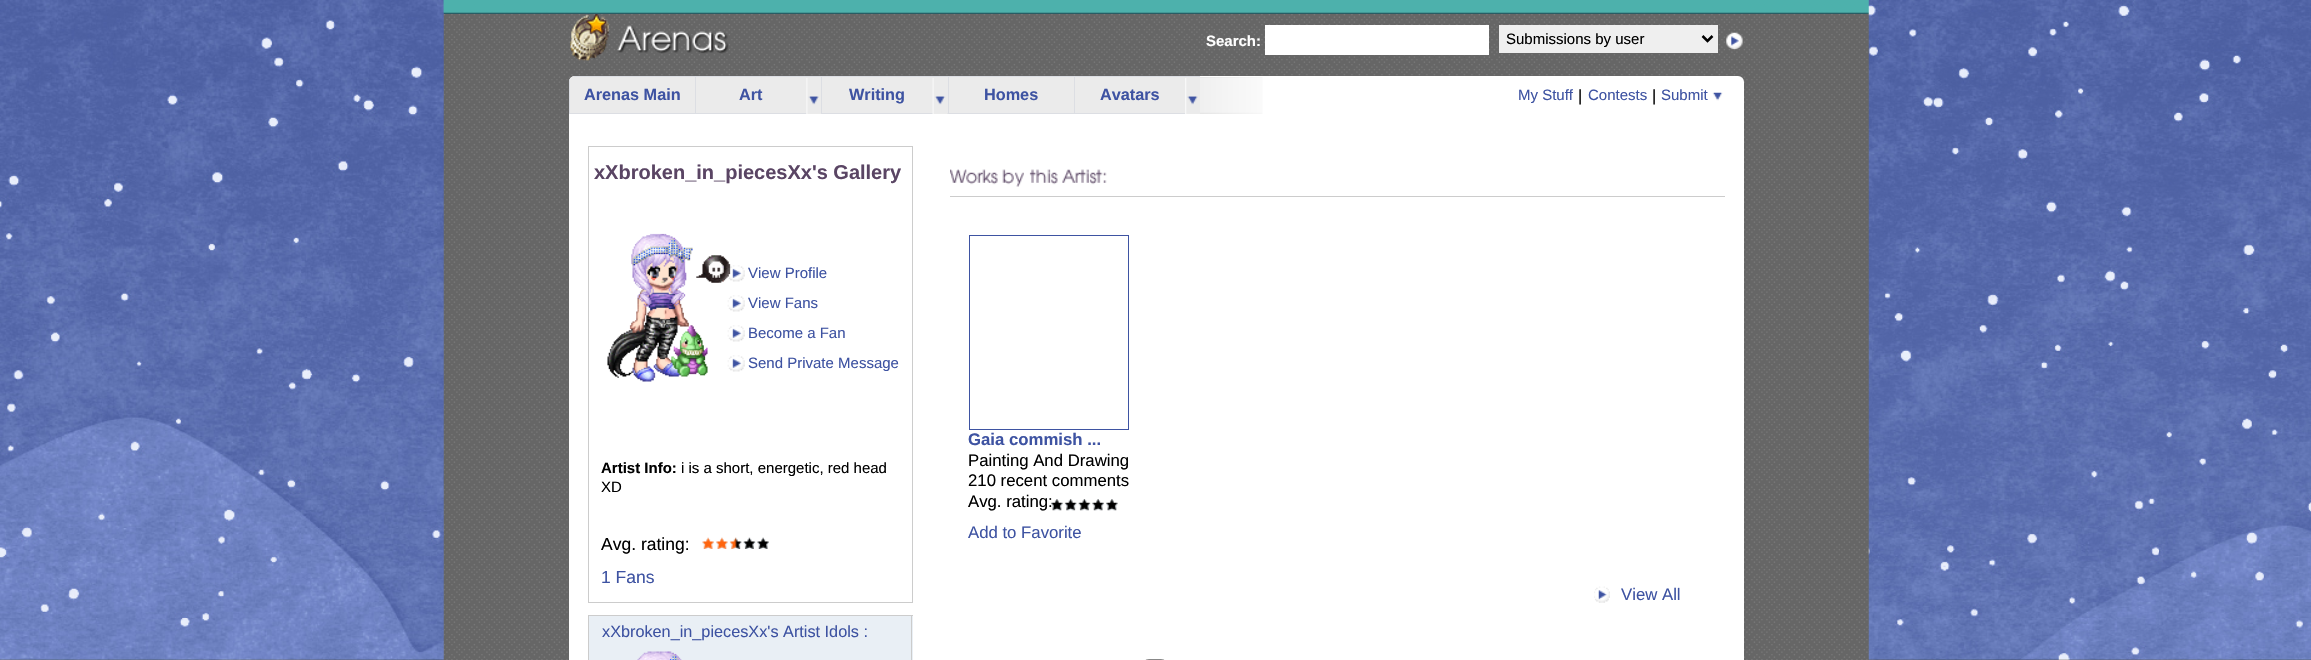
void draw(SkCanvas* canvas) {
    SkPaint paint;
    paint.setAntiAlias(true);
    canvas->clear(0xFFFFFFFF);
    canvas->drawImageRect(SkImages::DeferredFromEncodedData(SkData::MakeFromFileName("img1.png")), SkRect::MakeXYWH(0, 659, 2311, 1), SkSamplingOptions());
    canvas->drawImageRect(SkImages::DeferredFromEncodedData(SkData::MakeFromFileName("img2.png")), SkRect::MakeXYWH(0, 0, 2311, 660), SkSamplingOptions());
    canvas->drawImageRect(SkImages::DeferredFromEncodedData(SkData::MakeFromFileName("img3.png")), SkRect::MakeXYWH(443, 0, 1426, 14), SkSamplingOptions());
    canvas->drawImageRect(SkImages::DeferredFromEncodedData(SkData::MakeFromFileName("img4.png")), SkRect::MakeXYWH(443, 0, 1, 13), SkSamplingOptions());
    canvas->drawImageRect(SkImages::DeferredFromEncodedData(SkData::MakeFromFileName("img5.png")), SkRect::MakeXYWH(443, 14, 1426, 646), SkSamplingOptions());
    canvas->drawImageRect(SkImages::DeferredFromEncodedData(SkData::MakeFromFileName("img6.png")), SkRect::MakeXYWH(570, 14, 159, 47), SkSamplingOptions());
    SkFont font1(fontMgr->matchFamilyStyle("Liberation Sans", SkFontStyle::Bold()), 15);
    font1.setSubpixel(true);
    paint.setColor(0xFFFFFFFF);
    canvas->drawString("Search:", 1206, 46, font1, paint);
    canvas->drawRect(SkRect::MakeXYWH(1265, 25, 224, 30), paint);
    paint.setColor(0xFFEFEFEF);
    canvas->drawRect(SkRect::MakeXYWH(1499, 25, 219, 28), paint);
    paint.setStyle(SkPaint::kStroke_Style);
    paint.setStrokeWidth(2.5f);
    paint.setColor(0xFF000000);
    canvas->drawPath(SkPathBuilder().moveTo(1702.5f, 36).lineTo(1707.5f, 41).lineTo(1712.5f, 36).detach(), paint);
    SkFont font2(fontMgr->matchFamilyStyle("Liberation Sans", SkFontStyle::Normal()), 15);
    font2.setSubpixel(true);
    paint.setStyle(SkPaint::kFill_Style);
    canvas->drawString("Submissions by user", 1506, 44, font2, paint);
    canvas->drawImageRect(SkImages::DeferredFromEncodedData(SkData::MakeFromFileName("img7.png")), SkRect::MakeXYWH(1726, 32, 17, 18), SkSamplingOptions());
    paint.setColor(0xFFFFFFFF);
    canvas->drawRoundRect(SkRect::MakeXYWH(569, 76, 1175, 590), 6, 6, paint);
    paint.setColor(0xFFEBEBEB);
    canvas->drawPath(SkPathBuilder().moveTo(575, 76).lineTo(696, 76).lineTo(696, 114).lineTo(569, 114).lineTo(569, 82).cubicTo(569, 78.5f, 571.5f, 76, 575, 76).close().detach(), paint);
    paint.setColor(0xFFDCDEE3);
    canvas->drawPath(SkPathBuilder().moveTo(575, 76).lineTo(572, 77).lineTo(695, 77).lineTo(695, 113).lineTo(570, 113).lineTo(570, 79).cubicTo(569, 80, 569, 81, 569, 82).lineTo(569, 114).lineTo(696, 114).lineTo(696, 76).close().detach(), paint);
    SkFont font3(fontMgr->matchFamilyStyle("Liberation Sans", SkFontStyle::Bold()), 16.25f);
    font3.setSubpixel(true);
    paint.setColor(0xFF3E53A2);
    canvas->drawString("Arenas Main", 584, 100, font3, paint);
    paint.setColor(0xFFEBEBEB);
    canvas->drawRect(SkRect::MakeXYWH(696, 77, 125, 36), paint);
    paint.setStyle(SkPaint::kStroke_Style);
    paint.setStrokeWidth(1);
    paint.setColor(0xFFDCDEE3);
    canvas->drawRect(SkRect::MakeXYWH(695.5f, 76.5f, 127, 37), paint);
    paint.setStyle(SkPaint::kFill_Style);
    paint.setColor(0xFF3E53A2);
    canvas->drawString("Art", 739, 100, font3, paint);
    canvas->drawImageRect(SkImages::DeferredFromEncodedData(SkData::MakeFromFileName("img8.png")), SkRect::MakeXYWH(806, 78, 15, 36), SkSamplingOptions());
    paint.setColor(0xFFEBEBEB);
    canvas->drawRect(SkRect::MakeXYWH(821.5f, 76.5f, 127, 37), paint);
    paint.setStyle(SkPaint::kStroke_Style);
    paint.setColor(0xFFDCDEE3);
    canvas->drawRect(SkRect::MakeXYWH(821.5f, 76.5f, 127, 37), paint);
    paint.setStyle(SkPaint::kFill_Style);
    paint.setColor(0xFF3E53A2);
    canvas->drawString("Writing", 849, 100, font3, paint);
    canvas->drawImageRect(SkImages::DeferredFromEncodedData(SkData::MakeFromFileName("img9.png")), SkRect::MakeXYWH(932, 78, 16, 36), SkSamplingOptions());
    paint.setColor(0xFFEBEBEB);
    canvas->drawRect(SkRect::MakeXYWH(948.5f, 76.5f, 126, 37), paint);
    paint.setStyle(SkPaint::kStroke_Style);
    paint.setColor(0xFFDCDEE3);
    canvas->drawRect(SkRect::MakeXYWH(948.5f, 76.5f, 126, 37), paint);
    paint.setStyle(SkPaint::kFill_Style);
    paint.setColor(0xFF3E53A2);
    canvas->drawString("Homes", 984, 100, font3, paint);
    paint.setColor(0xFFEBEBEB);
    canvas->drawRect(SkRect::MakeXYWH(1075, 77, 125, 36), paint);
    paint.setColor(0xFFDCDEE3);
    canvas->drawRect(SkRect::MakeXYWH(1074, 76, 126, 1), paint);
    canvas->drawRect(SkRect::MakeXYWH(1074, 113, 111, 1), paint);
    paint.setColor(0xFF3E53A2);
    canvas->drawString("Avatars", 1100, 100, font3, paint);
    canvas->drawImageRect(SkImages::DeferredFromEncodedData(SkData::MakeFromFileName("img10.png")), SkRect::MakeXYWH(1185, 78, 15, 36), SkSamplingOptions());
    canvas->drawImageRect(SkImages::DeferredFromEncodedData(SkData::MakeFromFileName("img11.png")), SkRect::MakeXYWH(1200, 77, 63, 37), SkSamplingOptions());
    canvas->drawString("My Stuff", 1518, 100, font2, paint);
    SkFont font4(fontMgr->matchFamilyStyle("Liberation Sans", SkFontStyle::Normal()), 16.25f);
    font4.setSubpixel(true);
    paint.setColor(0xFF000000);
    canvas->drawString("|", 1578, 101, font4, paint);
    paint.setColor(0xFF3E53A2);
    canvas->drawString("Contests", 1588, 100, font2, paint);
    paint.setColor(0xFF000000);
    canvas->drawString("|", 1652, 101, font4, paint);
    paint.setColor(0xFF3E53A2);
    canvas->drawString("Submit", 1661, 100, font2, paint);
    canvas->drawImageRect(SkImages::DeferredFromEncodedData(SkData::MakeFromFileName("img12.png")), SkRect::MakeXYWH(1712, 92, 11, 9), SkSamplingOptions());
    paint.setStyle(SkPaint::kStroke_Style);
    paint.setColor(0xFFCCCCCC);
    canvas->drawRect(SkRect::MakeXYWH(588.5f, 146.5f, 324, 456), paint);
    SkFont font5(fontMgr->matchFamilyStyle("Liberation Sans", SkFontStyle::Bold()), 20);
    font5.setSubpixel(true);
    paint.setStyle(SkPaint::kFill_Style);
    paint.setColor(0xFF5A4564);
    canvas->drawString("xXbroken_in_piecesXx's Gallery", 594, 179, font5, paint);
    canvas->drawImageRect(SkImages::DeferredFromEncodedData(SkData::MakeFromFileName("img14.png")), SkRect::MakeXYWH(727, 265, 18, 17), SkSamplingOptions());
    canvas->drawImageRect(SkImages::DeferredFromEncodedData(SkData::MakeFromFileName("img14.png")), SkRect::MakeXYWH(727, 295, 18, 17), SkSamplingOptions());
    canvas->drawImageRect(SkImages::DeferredFromEncodedData(SkData::MakeFromFileName("img14.png")), SkRect::MakeXYWH(727, 325, 18, 17), SkSamplingOptions());
    canvas->drawImageRect(SkImages::DeferredFromEncodedData(SkData::MakeFromFileName("img14.png")), SkRect::MakeXYWH(727, 355, 18, 17), SkSamplingOptions());
    canvas->drawImageRect(SkImages::DeferredFromEncodedData(SkData::MakeFromFileName("img13.png")), SkRect::MakeXYWH(607, 233, 124, 149), SkSamplingOptions());
    paint.setColor(0xFF3E53A2);
    canvas->drawString("View Profile", 748, 278, font2, paint);
    canvas->drawString("View Fans", 748, 308, font2, paint);
    canvas->drawString("Become a Fan", 748, 338, font2, paint);
    canvas->drawString("Send Private Message", 748, 368, font2, paint);
    paint.setColor(0xFF000000);
    canvas->drawString("Artist Info:", 601, 473, font1, paint);
    canvas->drawString("i is a short, energetic, red head", 681, 473, font2, paint);
    canvas->drawString("XD", 601, 492, font2, paint);
    SkFont font6(fontMgr->matchFamilyStyle("Liberation Sans", SkFontStyle::Normal()), 17.5f);
    font6.setSubpixel(true);
    canvas->drawString("Avg. rating:", 601, 550, font6, paint);
    canvas->drawImageRect(SkImages::DeferredFromEncodedData(SkData::MakeFromFileName("img15.png")), SkRect::MakeXYWH(702, 537, 12, 12), SkSamplingOptions());
    canvas->drawImageRect(SkImages::DeferredFromEncodedData(SkData::MakeFromFileName("img16.png")), SkRect::MakeXYWH(716, 537, 12, 12), SkSamplingOptions());
    canvas->drawImageRect(SkImages::DeferredFromEncodedData(SkData::MakeFromFileName("img17.png")), SkRect::MakeXYWH(729, 537, 13, 12), SkSamplingOptions());
    canvas->drawImageRect(SkImages::DeferredFromEncodedData(SkData::MakeFromFileName("img18.png")), SkRect::MakeXYWH(743, 537, 13, 12), SkSamplingOptions());
    canvas->drawImageRect(SkImages::DeferredFromEncodedData(SkData::MakeFromFileName("img19.png")), SkRect::MakeXYWH(757, 537, 12, 12), SkSamplingOptions());
    paint.setColor(0xFF3E53A2);
    canvas->drawString("1 Fans", 601, 583, font6, paint);
    paint.setColor(0xFFCCCCCC);
    canvas->drawRect(SkRect::MakeXYWH(588, 615, 325, 1), paint);
    paint.setColor(0xFFE9EFF5);
    canvas->drawRect(SkRect::MakeXYWH(589, 616, 324, 44), paint);
    paint.setColor(0xFFCCCCCC);
    canvas->drawRect(SkRect::MakeXYWH(911, 616, 1, 44), paint);
    canvas->drawRect(SkRect::MakeXYWH(588, 616, 1, 44), paint);
    paint.setColor(0xFF3E53A2);
    canvas->drawString("xXbroken_in_piecesXx's Artist Idols :", 602, 637, font4, paint);
    canvas->drawImageRect(SkImages::DeferredFromEncodedData(SkData::MakeFromFileName("img20.png")), SkRect::MakeXYWH(637, 651, 45, 9), SkSamplingOptions());
    paint.setColor(0xFFCCCCCC);
    canvas->drawRect(SkRect::MakeXYWH(950, 196, 775, 1), paint);
    canvas->drawImageRect(SkImages::DeferredFromEncodedData(SkData::MakeFromFileName("img21.png")), SkRect::MakeXYWH(950, 169, 157, 18), SkSamplingOptions());
    paint.setStyle(SkPaint::kStroke_Style);
    paint.setColor(0xFF3E53A2);
    canvas->drawRect(SkRect::MakeXYWH(969.5f, 235.5f, 159, 194), paint);
    SkFont font7(fontMgr->matchFamilyStyle("Liberation Sans", SkFontStyle::Bold()), 16.75f);
    font7.setSubpixel(true);
    paint.setStyle(SkPaint::kFill_Style);
    canvas->drawString("Gaia commish ...", 968, 445, font7, paint);
    SkFont font8(fontMgr->matchFamilyStyle("Liberation Sans", SkFontStyle::Normal()), 16.75f);
    font8.setSubpixel(true);
    paint.setColor(0xFF000000);
    canvas->drawString("Painting And Drawing", 968, 466, font8, paint);
    canvas->drawString("210 recent comments", 968, 486, font8, paint);
    canvas->drawString("Avg. rating:", 968, 507, font8, paint);
    canvas->drawImageRect(SkImages::DeferredFromEncodedData(SkData::MakeFromFileName("img22.png")), SkRect::MakeXYWH(1051, 499, 12, 12), SkSamplingOptions());
    canvas->drawImageRect(SkImages::DeferredFromEncodedData(SkData::MakeFromFileName("img23.png")), SkRect::MakeXYWH(1064, 499, 13, 12), SkSamplingOptions());
    canvas->drawImageRect(SkImages::DeferredFromEncodedData(SkData::MakeFromFileName("img24.png")), SkRect::MakeXYWH(1078, 499, 13, 12), SkSamplingOptions());
    canvas->drawImageRect(SkImages::DeferredFromEncodedData(SkData::MakeFromFileName("img25.png")), SkRect::MakeXYWH(1092, 499, 12, 12), SkSamplingOptions());
    canvas->drawImageRect(SkImages::DeferredFromEncodedData(SkData::MakeFromFileName("img22.png")), SkRect::MakeXYWH(1106, 499, 12, 12), SkSamplingOptions());
    paint.setColor(0xFF3E53A2);
    canvas->drawString("Add to Favorite", 968, 538, font8, paint);
    canvas->drawImageRect(SkImages::DeferredFromEncodedData(SkData::MakeFromFileName("img26.png")), SkRect::MakeXYWH(1594, 586, 16, 17), SkSamplingOptions());
    canvas->drawString("View All", 1621, 600, font8, paint);
    paint.setStyle(SkPaint::kStroke_Style);
    paint.setColor(0xFFF9F9F9);
    canvas->drawRoundRect(SkRect::MakeXYWH(1141.5f, 659.5f, 27, 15), 13, 13, paint);
    paint.setColor(0xFF888888);
    canvas->drawRoundRect(SkRect::MakeXYWH(1141.5f, 659.5f, 27, 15), 13, 13, paint);
}
